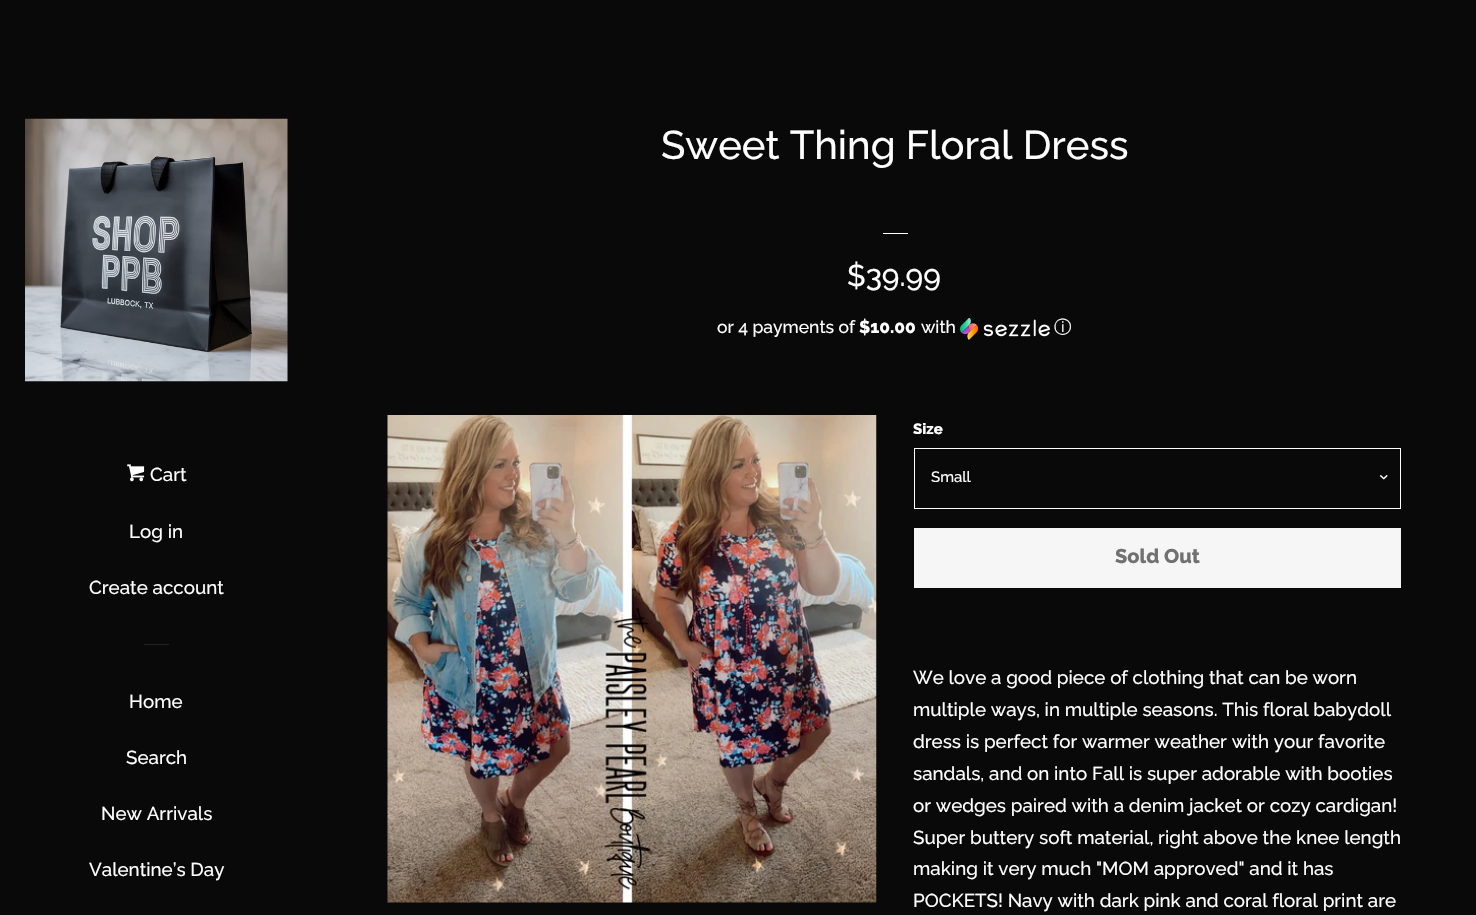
void draw(SkCanvas* canvas) {
    SkPaint paint;
    paint.setAntiAlias(true);
    canvas->clear(0xFF090909);
    canvas->drawImageRect(SkImages::DeferredFromEncodedData(SkData::MakeFromFileName("img1.png")), SkRect::MakeXYWH(25, 118, 263, 264), SkSamplingOptions());
    canvas->drawImageRect(SkImages::DeferredFromEncodedData(SkData::MakeFromFileName("img2.png")), SkRect::MakeXYWH(127, 464, 18, 18), SkSamplingOptions());
    SkFont font1(fontMgr->matchFamilyStyle("Raleway", SkFontStyle(500, SkFontStyle::kNormal_Width, SkFontStyle::kUpright_Slant)), 18.75f);
    font1.setSubpixel(true);
    paint.setColor(0xFFFFFFFF);
    canvas->drawString("Cart", 150, 481, font1, paint);
    canvas->drawString("Log in", 129, 538, font1, paint);
    canvas->drawString("Create account", 89, 594, font1, paint);
    paint.setColor(0xFF232323);
    canvas->drawRect(SkRect::MakeXYWH(144, 644, 25, 1), paint);
    paint.setColor(0xFFFFFFFF);
    canvas->drawString("Home", 129, 708, font1, paint);
    canvas->drawString("Search", 126, 764, font1, paint);
    canvas->drawString("New Arrivals", 101, 820, font1, paint);
    canvas->drawString("Valentine’s Day", 89, 876, font1, paint);
    SkFont font2(fontMgr->matchFamilyStyle("Raleway", SkFontStyle(500, SkFontStyle::kNormal_Width, SkFontStyle::kUpright_Slant)), 40);
    font2.setSubpixel(true);
    canvas->drawString("Sweet Thing Floral Dress", 661, 159, font2, paint);
    canvas->drawRect(SkRect::MakeXYWH(883, 233, 25, 1), paint);
    SkFont font3(fontMgr->matchFamilyStyle("Raleway", SkFontStyle(500, SkFontStyle::kNormal_Width, SkFontStyle::kUpright_Slant)), 30);
    font3.setSubpixel(true);
    canvas->drawString("$39.99", 847, 286, font3, paint);
    SkFont font4(fontMgr->matchFamilyStyle("Raleway", SkFontStyle(500, SkFontStyle::kNormal_Width, SkFontStyle::kUpright_Slant)), 17.5f);
    font4.setSubpixel(true);
    canvas->drawString("or 4 payments of", 717, 333, font4, paint);
    SkFont font5(fontMgr->matchFamilyStyle("Raleway", SkFontStyle(800, SkFontStyle::kNormal_Width, SkFontStyle::kUpright_Slant)), 17.5f);
    font5.setSubpixel(true);
    canvas->drawString("$10.00", 859, 333, font5, paint);
    canvas->drawString("with", 921, 333, font4, paint);
    canvas->drawImageRect(SkImages::DeferredFromEncodedData(SkData::MakeFromFileName("img3.png")), SkRect::MakeXYWH(960, 318, 90, 22), SkSamplingOptions());
    SkFont font6(fontMgr->matchFamilyStyle("WenQuanYi Zen Hei", SkFontStyle(500, SkFontStyle::kNormal_Width, SkFontStyle::kUpright_Slant)), 17.5f);
    font6.setSubpixel(true);
    canvas->drawString("ⓘ", 1054, 333, font6, paint);
    canvas->drawImageRect(SkImages::DeferredFromEncodedData(SkData::MakeFromFileName("img4.png")), SkRect::MakeXYWH(387, 415, 490, 488), SkSamplingOptions());
    SkFont font7(fontMgr->matchFamilyStyle("Raleway", SkFontStyle(800, SkFontStyle::kNormal_Width, SkFontStyle::kUpright_Slant)), 15);
    font7.setSubpixel(true);
    canvas->drawString("Size", 913, 434, font7, paint);
    canvas->drawImageRect(SkImages::DeferredFromEncodedData(SkData::MakeFromFileName("img5.png")), SkRect::MakeXYWH(1380, 475, 8, 5), SkSamplingOptions());
    paint.setStyle(SkPaint::kStroke_Style);
    paint.setStrokeWidth(1);
    canvas->drawRect(SkRect::MakeXYWH(914.5f, 448.5f, 486, 60), paint);
    SkFont font8(fontMgr->matchFamilyStyle("Raleway", SkFontStyle(500, SkFontStyle::kNormal_Width, SkFontStyle::kUpright_Slant)), 15);
    font8.setSubpixel(true);
    paint.setStyle(SkPaint::kFill_Style);
    canvas->drawString("Small", 931, 482, font8, paint);
    paint.setColor(0xFFF6F6F6);
    canvas->drawRect(SkRect::MakeXYWH(914, 528, 487, 60), paint);
    SkFont font9(fontMgr->matchFamilyStyle("Raleway", SkFontStyle(800, SkFontStyle::kNormal_Width, SkFontStyle::kUpright_Slant)), 20);
    font9.setSubpixel(true);
    paint.setColor(0xFF717171);
    canvas->drawString("Sold Out", 1115, 563, font9, paint);
    paint.setColor(0xFFFFFFFF);
    canvas->drawString("We love a good piece of clothing that can be worn", 913, 684, font1, paint);
    canvas->drawString("multiple ways, in multiple seasons. This floral babydoll", 913, 716, font1, paint);
    canvas->drawString("dress is perfect for warmer weather with your favorite", 913, 748, font1, paint);
    canvas->drawString("sandals, and on into Fall is super adorable with booties", 913, 780, font1, paint);
    canvas->drawString("or wedges paired with a denim jacket or cozy cardigan!", 913, 812, font1, paint);
    canvas->drawString("Super buttery soft material, right above the knee length", 913, 844, font1, paint);
    canvas->drawString("making it very much \"MOM approved\" and it has", 913, 875, font1, paint);
    canvas->drawString("POCKETS! Navy with dark pink and coral floral print are", 913, 907, font1, paint);
}
